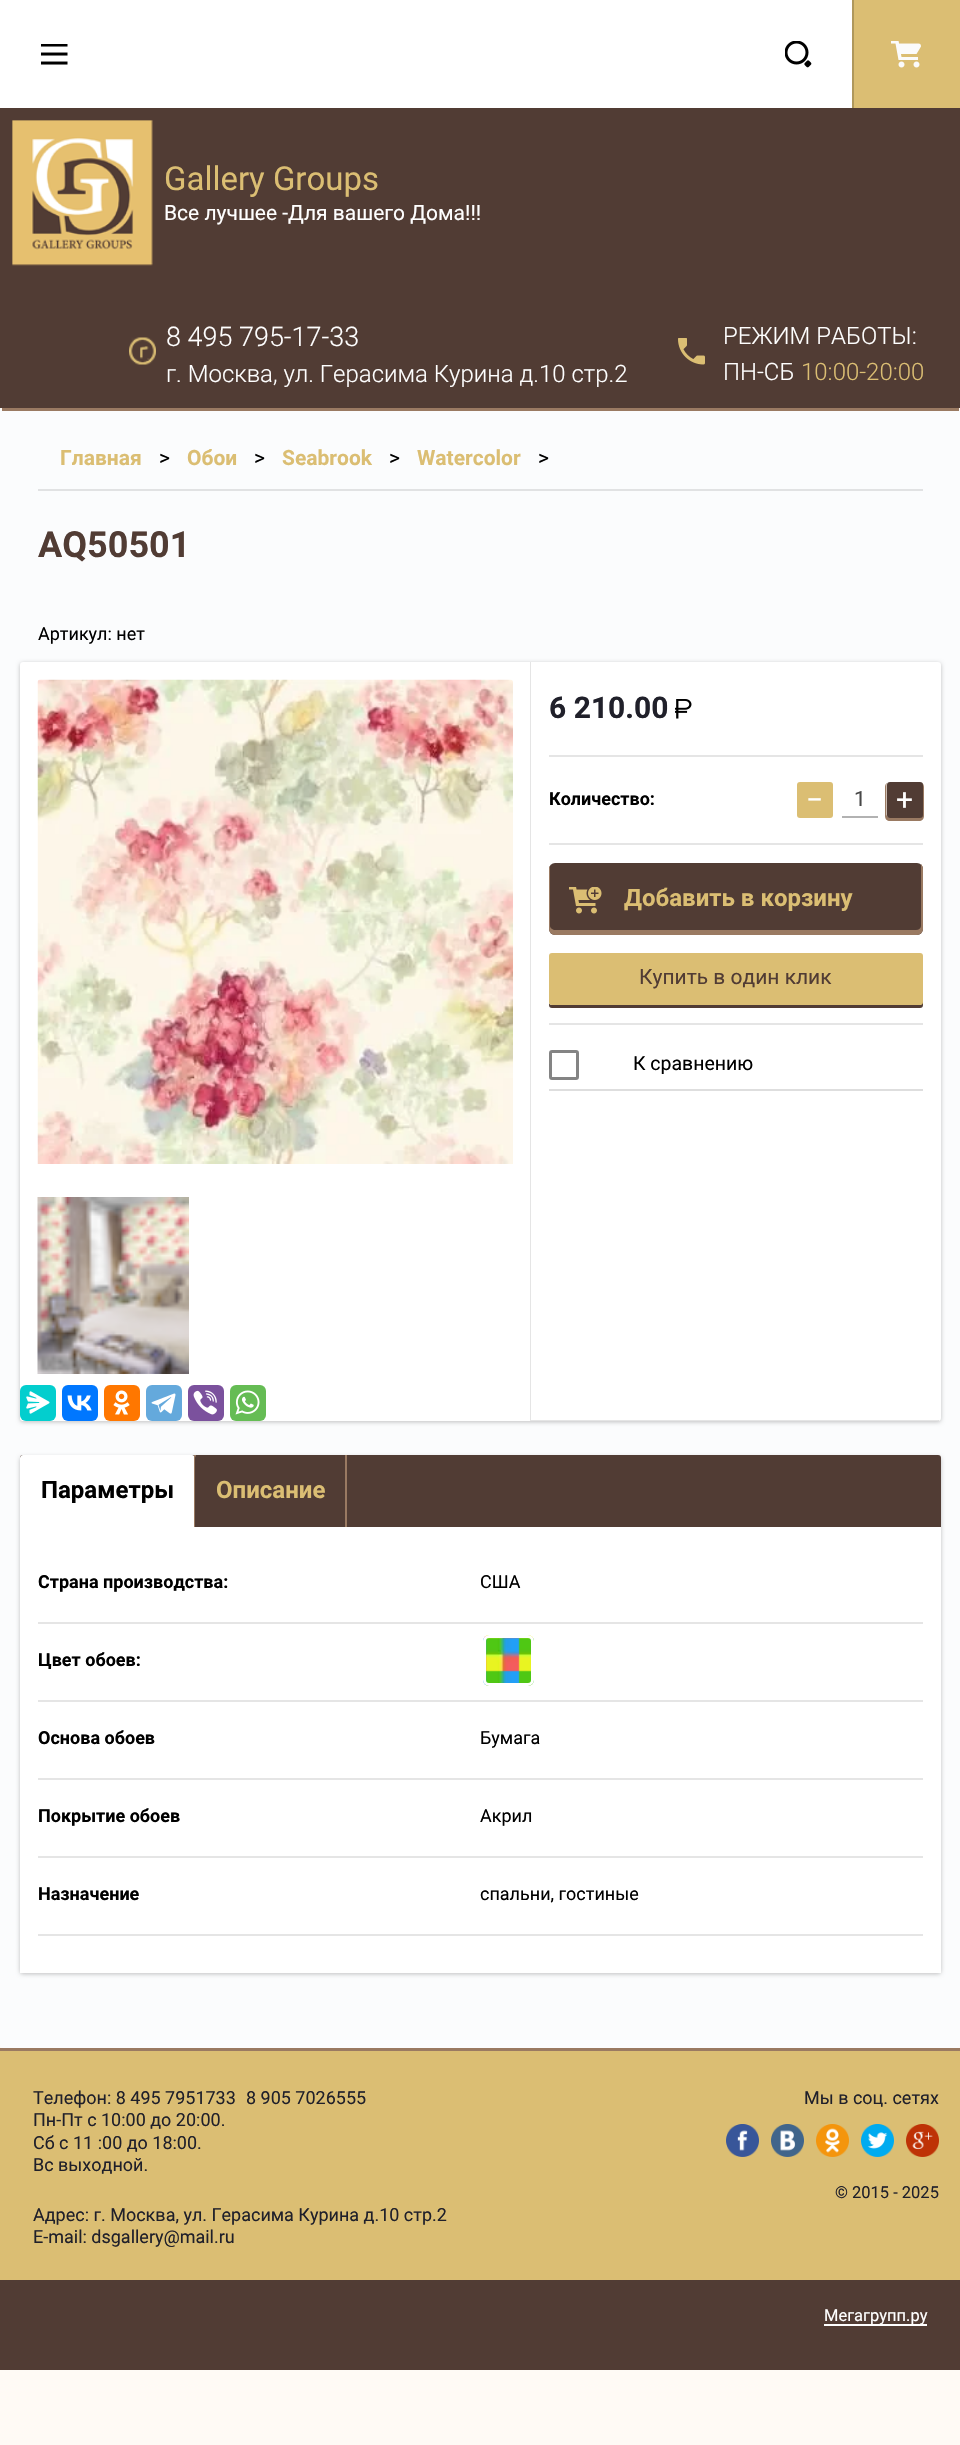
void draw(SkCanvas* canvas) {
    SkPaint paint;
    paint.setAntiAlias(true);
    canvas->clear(0xFFFFFAF5);
    paint.setColor(0xFF513C34);
    canvas->drawRect(SkRect::MakeXYWH(0, 108, 960, 300), paint);
    paint.setColor(0xFFFFFFFF);
    canvas->drawRect(SkRect::MakeXYWH(0, 0, 852, 108), paint);
    canvas->drawImageRect(SkImages::DeferredFromEncodedData(SkData::MakeFromFileName("img1.png")), SkRect::MakeXYWH(41, 44, 27, 21), SkSamplingOptions());
    canvas->drawImageRect(SkImages::DeferredFromEncodedData(SkData::MakeFromFileName("img2.png")), SkRect::MakeXYWH(785, 41, 27, 27), SkSamplingOptions());
    paint.setColor(0xFFAF985C);
    canvas->drawRect(SkRect::MakeXYWH(852, 0, 2, 108), paint);
    paint.setColor(0xFFDBBE73);
    canvas->drawRect(SkRect::MakeXYWH(854, 0, 106, 108), paint);
    canvas->drawImageRect(SkImages::DeferredFromEncodedData(SkData::MakeFromFileName("img3.png")), SkRect::MakeXYWH(891, 41, 30, 27), SkSamplingOptions());
    canvas->drawImageRect(SkImages::DeferredFromEncodedData(SkData::MakeFromFileName("img4.png")), SkRect::MakeXYWH(12, 120, 141, 146), SkSamplingOptions());
    SkFont font1(fontMgr->matchFamilyStyle("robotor", SkFontStyle::Normal()), 33);
    font1.setSubpixel(true);
    canvas->drawString("Gallery Groups", 164, 190, font1, paint);
    SkFont font2(fontMgr->matchFamilyStyle("robotor", SkFontStyle::Normal()), 21);
    font2.setSubpixel(true);
    paint.setColor(0xFFFFFFFF);
    canvas->drawString("Все лучшее -Для вашего Дома!!!", 164, 220, font2, paint);
    canvas->drawImageRect(SkImages::DeferredFromEncodedData(SkData::MakeFromFileName("img5.png")), SkRect::MakeXYWH(129, 337, 27, 28), SkSamplingOptions());
    SkFont font3(fontMgr->matchFamilyStyle("Roboto", SkFontStyle(300, SkFontStyle::kNormal_Width, SkFontStyle::kUpright_Slant)), 27);
    font3.setSubpixel(true);
    canvas->drawString("8 495 795-17-33", 166, 346, font3, paint);
    SkFont font4(fontMgr->matchFamilyStyle("Roboto", SkFontStyle(300, SkFontStyle::kNormal_Width, SkFontStyle::kUpright_Slant)), 24);
    font4.setSubpixel(true);
    canvas->drawString("г. Москва, ул. Герасима Курина д.10 стр.2", 166, 382, font4, paint);
    canvas->drawImageRect(SkImages::DeferredFromEncodedData(SkData::MakeFromFileName("img6.png")), SkRect::MakeXYWH(678, 338, 27, 27), SkSamplingOptions());
    canvas->drawString("РЕЖИМ РАБОТЫ:", 723, 344, font4, paint);
    canvas->drawString("ПН-СБ", 723, 380, font4, paint);
    paint.setColor(0xFFDBBE73);
    canvas->drawString("10:00-20:00", 801, 380, font4, paint);
    paint.setColor(0xFFFBFCFD);
    canvas->drawRoundRect(SkRect::MakeXYWH(0, 408, 960, 1640), 3, 3, paint);
    paint.setColor(0xFF9A7A62);
    canvas->drawRect(SkRect::MakeXYWH(2, 408, 957, 3), paint);
    paint.setColor(0xFFE1E2E3);
    canvas->drawRect(SkRect::MakeXYWH(38, 489, 885, 2), paint);
    SkFont font5(fontMgr->matchFamilyStyle("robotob", SkFontStyle::Bold()), 21);
    font5.setSubpixel(true);
    paint.setColor(0xFFDBBE73);
    canvas->drawString("Главная", 60, 465, font5, paint);
    paint.setColor(0xFF000000);
    canvas->drawString(">", 159, 465, font2, paint);
    paint.setColor(0xFFDBBE73);
    canvas->drawString("Обои", 187, 465, font5, paint);
    paint.setColor(0xFF000000);
    canvas->drawString(">", 254, 465, font2, paint);
    paint.setColor(0xFFDBBE73);
    canvas->drawString("Seabrook", 282, 465, font5, paint);
    paint.setColor(0xFF000000);
    canvas->drawString(">", 389, 465, font2, paint);
    paint.setColor(0xFFDBBE73);
    canvas->drawString("Watercolor", 417, 465, font5, paint);
    paint.setColor(0xFF000000);
    canvas->drawString(">", 538, 465, font2, paint);
    SkFont font6(fontMgr->matchFamilyStyle("robotob", SkFontStyle::Bold()), 36);
    font6.setSubpixel(true);
    paint.setColor(0xFF513C34);
    canvas->drawString("AQ50501", 38, 557, font6, paint);
    SkFont font7(fontMgr->matchFamilyStyle("robotor", SkFontStyle::Normal()), 18);
    font7.setSubpixel(true);
    paint.setColor(0xFF000000);
    canvas->drawString("Артикул: нет", 38, 640, font7, paint);
    paint.setColor(0x3D000000);
    paint.setMaskFilter(SkMaskFilter::MakeBlur(kNormal_SkBlurStyle, 2));
    canvas->drawRoundRect(SkRect::MakeXYWH(20, 663, 921, 759), 3, 3, paint);
    paint.setMaskFilter(nullptr);
    paint.setColor(0xFFFFFFFF);
    canvas->drawRoundRect(SkRect::MakeXYWH(20, 662, 921, 759), 3, 3, paint);
    canvas->drawImageRect(SkImages::DeferredFromEncodedData(SkData::MakeFromFileName("img7.png")), SkRect::MakeXYWH(37, 679, 476, 485), SkSamplingOptions());
    canvas->drawImageRect(SkImages::DeferredFromEncodedData(SkData::MakeFromFileName("img8.png")), SkRect::MakeXYWH(37, 1197, 152, 177), SkSamplingOptions());
    paint.setColor(0xFF03CECE);
    canvas->drawRoundRect(SkRect::MakeXYWH(20, 1385, 36, 36), 6, 6, paint);
    canvas->drawImageRect(SkImages::DeferredFromEncodedData(SkData::MakeFromFileName("img9.png")), SkRect::MakeXYWH(26, 1391, 24, 23), SkSamplingOptions());
    paint.setColor(0xFF0077FF);
    canvas->drawRoundRect(SkRect::MakeXYWH(62, 1385, 36, 36), 6, 6, paint);
    canvas->drawImageRect(SkImages::DeferredFromEncodedData(SkData::MakeFromFileName("img10.png")), SkRect::MakeXYWH(67, 1395, 25, 16), SkSamplingOptions());
    paint.setColor(0xFFFF7700);
    canvas->drawRoundRect(SkRect::MakeXYWH(104, 1385, 36, 36), 6, 6, paint);
    canvas->drawImageRect(SkImages::DeferredFromEncodedData(SkData::MakeFromFileName("img11.png")), SkRect::MakeXYWH(113, 1390, 17, 25), SkSamplingOptions());
    paint.setColor(0xFF64A9DC);
    canvas->drawRoundRect(SkRect::MakeXYWH(146, 1385, 36, 36), 6, 6, paint);
    canvas->drawImageRect(SkImages::DeferredFromEncodedData(SkData::MakeFromFileName("img12.png")), SkRect::MakeXYWH(151, 1393, 25, 21), SkSamplingOptions());
    paint.setColor(0xFF7B519D);
    canvas->drawRoundRect(SkRect::MakeXYWH(188, 1385, 36, 36), 6, 6, paint);
    canvas->drawImageRect(SkImages::DeferredFromEncodedData(SkData::MakeFromFileName("img13.png")), SkRect::MakeXYWH(193, 1390, 24, 25), SkSamplingOptions());
    paint.setColor(0xFF65BC54);
    canvas->drawRoundRect(SkRect::MakeXYWH(230, 1385, 36, 36), 6, 6, paint);
    canvas->drawImageRect(SkImages::DeferredFromEncodedData(SkData::MakeFromFileName("img14.png")), SkRect::MakeXYWH(235, 1390, 25, 25), SkSamplingOptions());
    paint.setColor(0x1A000000);
    canvas->drawPath(SkPathBuilder().moveTo(530, 662).lineTo(530, 1421).lineTo(939, 1421).lineTo(939, 1420).lineTo(531, 1420).lineTo(531, 662).close().detach(), paint);
    SkFont font8(fontMgr->matchFamilyStyle("robotob", SkFontStyle::Bold()), 30);
    font8.setSubpixel(true);
    paint.setColor(0xFF20202A);
    canvas->drawString("6 210.00", 549, 718, font8, paint);
    canvas->drawImageRect(SkImages::DeferredFromEncodedData(SkData::MakeFromFileName("img15.png")), SkRect::MakeXYWH(675, 699, 17, 20), SkSamplingOptions());
    paint.setColor(0xFFE5E5E5);
    canvas->drawRect(SkRect::MakeXYWH(549, 755, 374, 2), paint);
    canvas->drawRect(SkRect::MakeXYWH(549, 843, 374, 2), paint);
    SkFont font9(fontMgr->matchFamilyStyle("robotob", SkFontStyle::Bold()), 18);
    font9.setSubpixel(true);
    paint.setColor(0xFF000000);
    canvas->drawString("Количество:", 549, 805, font9, paint);
    paint.setColor(0xFFDBBE73);
    canvas->drawRoundRect(SkRect::MakeXYWH(797, 782, 36, 36), 3, 3, paint);
    SkFont font10(fontMgr->matchFamilyStyle("robotor", SkFontStyle::Normal()), 30);
    font10.setSubpixel(true);
    paint.setColor(0xFFFFFFFF);
    canvas->drawString("−", 806, 810, font10, paint);
    paint.setColor(0xFFB2B2B2);
    canvas->drawRect(SkRect::MakeXYWH(842, 816, 36, 2), paint);
    paint.setColor(0xFF484848);
    canvas->drawString("1", 854, 806, font2, paint);
    paint.setColor(0xFF9A7A62);
    canvas->drawPath(SkPathBuilder().moveTo(887, 783).cubicTo(885.5f, 784, 885, 785.5f, 885, 787).lineTo(885, 816).cubicTo(885, 819, 887, 821, 890, 821).lineTo(919, 821).cubicTo(922, 821, 924, 819, 924, 816).lineTo(924, 787).cubicTo(924, 785.5f, 923.5f, 784, 922, 783).lineTo(922.5f, 784.5f).lineTo(922.5f, 814.5f).cubicTo(922.5f, 816, 921, 817.5f, 919.5f, 817.5f).lineTo(889.5f, 817.5f).cubicTo(888, 817.5f, 886.5f, 816, 886.5f, 814.5f).lineTo(886.5f, 784.5f).close().detach(), paint);
    paint.setColor(0xFF513C34);
    canvas->drawRoundRect(SkRect::MakeXYWH(887, 782, 36, 36), 3, 3, paint);
    paint.setColor(0xFFFFFFFF);
    canvas->drawString("+", 896, 810, font10, paint);
    paint.setColor(0xFF513C34);
    canvas->drawRoundRect(SkRect::MakeXYWH(549, 863, 374, 72), 6, 6, paint);
    paint.setColor(0xFF9A7A62);
    canvas->drawPath(SkPathBuilder().moveTo(550, 866).cubicTo(549, 867, 549, 868, 549, 869).lineTo(549, 929).cubicTo(549, 932, 552, 935, 555, 935).lineTo(917, 935).cubicTo(920, 935, 923, 932, 923, 929).lineTo(923, 869).cubicTo(923, 867, 922, 865, 921, 864).lineTo(921, 926).cubicTo(921, 928, 919, 930, 916, 930).lineTo(555, 930).cubicTo(553, 930, 550, 928, 550, 926).close().detach(), paint);
    canvas->drawImageRect(SkImages::DeferredFromEncodedData(SkData::MakeFromFileName("img16.png")), SkRect::MakeXYWH(569, 887, 33, 27), SkSamplingOptions());
    SkFont font11(fontMgr->matchFamilyStyle("robotob", SkFontStyle::Bold()), 24);
    font11.setSubpixel(true);
    paint.setColor(0xFFDBBE73);
    canvas->drawString("Добавить в корзину", 624, 906, font11, paint);
    paint.setColor(0xFF513C34);
    canvas->drawPath(SkPathBuilder().moveTo(549, 1002).lineTo(549, 1005).cubicTo(549, 1007, 550, 1008, 552, 1008).lineTo(920, 1008).cubicTo(922, 1008, 923, 1007, 923, 1005).lineTo(923, 959).lineTo(922, 957).lineTo(922, 1002).cubicTo(922, 1004, 921, 1005, 920, 1005).lineTo(552, 1005).cubicTo(550, 1005, 549, 1004, 549, 1002).close().detach(), paint);
    paint.setColor(0xFFDBBE73);
    canvas->drawRoundRect(SkRect::MakeXYWH(549, 953, 374, 52), 3, 3, paint);
    paint.setColor(0xFF513C34);
    canvas->drawString("Купить в один клик", 639, 984, font2, paint);
    paint.setColor(0xFFE5E5E5);
    canvas->drawRect(SkRect::MakeXYWH(549, 1023, 374, 2), paint);
    paint.setColor(0xFFDEDEDE);
    canvas->drawRect(SkRect::MakeXYWH(549, 1089, 374, 2), paint);
    paint.setStyle(SkPaint::kStroke_Style);
    paint.setStrokeWidth(3);
    paint.setColor(0xFF848484);
    canvas->drawRoundRect(SkRect::MakeXYWH(550.5f, 1051.5f, 27, 27), 1.5f, 1.5f, paint);
    SkFont font12(fontMgr->matchFamilyStyle("robotor", SkFontStyle::Normal()), 19.5f);
    font12.setSubpixel(true);
    paint.setStyle(SkPaint::kFill_Style);
    paint.setColor(0xFF000000);
    canvas->drawString("К сравнению", 633, 1070, font12, paint);
    paint.setColor(0x3D000000);
    paint.setMaskFilter(SkMaskFilter::MakeBlur(kNormal_SkBlurStyle, 2));
    canvas->drawRoundRect(SkRect::MakeXYWH(20, 1457, 921, 517), 3, 3, paint);
    paint.setMaskFilter(nullptr);
    paint.setColor(0xFF513C34);
    canvas->drawRoundRect(SkRect::MakeXYWH(20, 1455, 921, 518), 3, 3, paint);
    paint.setColor(0xFFFFFFFF);
    canvas->drawPath(SkPathBuilder().moveTo(23, 1455).lineTo(192, 1455).cubicTo(193.5f, 1455, 195, 1456.5f, 195, 1458).lineTo(195, 1527).lineTo(20, 1527).lineTo(20, 1458).cubicTo(20, 1456.5f, 21.5f, 1455, 23, 1455).close().detach(), paint);
    paint.setColor(0xFF000000);
    canvas->drawString("Параметры", 41, 1498, font11, paint);
    paint.setColor(0xFF9A7A62);
    canvas->drawRect(SkRect::MakeXYWH(194, 1455, 2, 72), paint);
    paint.setColor(0xFF513C34);
    canvas->drawPath(SkPathBuilder().moveTo(198, 1455).lineTo(344, 1455).cubicTo(345.5f, 1455, 347, 1456.5f, 347, 1458).lineTo(347, 1527).lineTo(195, 1527).lineTo(195, 1458).cubicTo(195, 1456.5f, 196.5f, 1455, 198, 1455).close().detach(), paint);
    paint.setColor(0xFFDBBE73);
    canvas->drawString("Описание", 216, 1498, font11, paint);
    paint.setColor(0xFF9A7A62);
    canvas->drawRect(SkRect::MakeXYWH(345, 1455, 2, 72), paint);
    paint.setColor(0xFFFFFFFF);
    canvas->drawRect(SkRect::MakeXYWH(20, 1527, 921, 446), paint);
    paint.setColor(0xFFE5E5E5);
    canvas->drawRect(SkRect::MakeXYWH(38, 1622, 885, 2), paint);
    paint.setColor(0xFF000000);
    canvas->drawString("Страна производства:", 38, 1588, font9, paint);
    canvas->drawString("США", 480, 1588, font7, paint);
    paint.setColor(0xFFE5E5E5);
    canvas->drawRect(SkRect::MakeXYWH(38, 1700, 885, 2), paint);
    paint.setColor(0xFF000000);
    canvas->drawString("Цвет обоев:", 38, 1666, font9, paint);
    canvas->drawImageRect(SkImages::DeferredFromEncodedData(SkData::MakeFromFileName("img17.png")), SkRect::MakeXYWH(483, 1635, 51, 51), SkSamplingOptions());
    paint.setStyle(SkPaint::kStroke_Style);
    paint.setColor(0xFFFFFFFF);
    canvas->drawRoundRect(SkRect::MakeXYWH(484.5f, 1636.5f, 48, 48), 4.5f, 4.5f, paint);
    paint.setStyle(SkPaint::kFill_Style);
    paint.setColor(0xFFE5E5E5);
    canvas->drawRect(SkRect::MakeXYWH(38, 1778, 885, 2), paint);
    paint.setColor(0xFF000000);
    canvas->drawString("Основа обоев", 38, 1744, font9, paint);
    canvas->drawString("Бумага", 480, 1744, font7, paint);
    paint.setColor(0xFFE5E5E5);
    canvas->drawRect(SkRect::MakeXYWH(38, 1856, 885, 2), paint);
    paint.setColor(0xFF000000);
    canvas->drawString("Покрытие обоев", 38, 1822, font9, paint);
    canvas->drawString("Акрил", 480, 1822, font7, paint);
    paint.setColor(0xFFE5E5E5);
    canvas->drawRect(SkRect::MakeXYWH(38, 1934, 885, 2), paint);
    paint.setColor(0xFF000000);
    canvas->drawString("Назначение", 38, 1900, font9, paint);
    canvas->drawString("спальни, гостиные", 480, 1900, font7, paint);
    paint.setColor(0xFFDBBE73);
    canvas->drawRect(SkRect::MakeXYWH(0, 2051, 960, 229), paint);
    paint.setColor(0xFF9A7A62);
    canvas->drawRect(SkRect::MakeXYWH(0, 2048, 960, 3), paint);
    paint.setColor(0xFF20202A);
    canvas->drawString("Телефон: 8 495 7951733", 33, 2104, font7, paint);
    canvas->drawString("8 905 7026555", 246, 2104, font7, paint);
    canvas->drawString("Пн-Пт с 10:00 до 20:00.", 33, 2126, font7, paint);
    canvas->drawString("Сб с 11 :00 до 18:00.", 33, 2149, font7, paint);
    canvas->drawString("Вс выходной.", 33, 2171, font7, paint);
    canvas->drawString("Адрес: г. Москва, ул. Герасима Курина д.10 стр.2", 33, 2221, font7, paint);
    canvas->drawString("Е-mail: dsgallery@mail.ru", 33, 2243, font7, paint);
    canvas->drawString("Мы в соц. сетях", 804, 2104, font7, paint);
    canvas->drawImageRect(SkImages::DeferredFromEncodedData(SkData::MakeFromFileName("img18.png")), SkRect::MakeXYWH(726, 2124, 33, 33), SkSamplingOptions());
    canvas->drawImageRect(SkImages::DeferredFromEncodedData(SkData::MakeFromFileName("img19.png")), SkRect::MakeXYWH(771, 2124, 33, 33), SkSamplingOptions());
    canvas->drawImageRect(SkImages::DeferredFromEncodedData(SkData::MakeFromFileName("img20.png")), SkRect::MakeXYWH(816, 2124, 33, 33), SkSamplingOptions());
    canvas->drawImageRect(SkImages::DeferredFromEncodedData(SkData::MakeFromFileName("img21.png")), SkRect::MakeXYWH(861, 2124, 33, 33), SkSamplingOptions());
    canvas->drawImageRect(SkImages::DeferredFromEncodedData(SkData::MakeFromFileName("img22.png")), SkRect::MakeXYWH(906, 2124, 33, 33), SkSamplingOptions());
    SkFont font13(fontMgr->matchFamilyStyle("robotor", SkFontStyle::Normal()), 16.5f);
    font13.setSubpixel(true);
    canvas->drawString("© 2015 - 2025", 835, 2198, font13, paint);
    paint.setColor(0xFF513C34);
    canvas->drawRect(SkRect::MakeXYWH(0, 2280, 960, 90), paint);
    paint.setColor(0xFFFFFFFF);
    canvas->drawRect(SkRect::MakeXYWH(824, 2324, 103, 2), paint);
    canvas->drawString("Мегагрупп.ру", 824, 2321, font13, paint);
}
